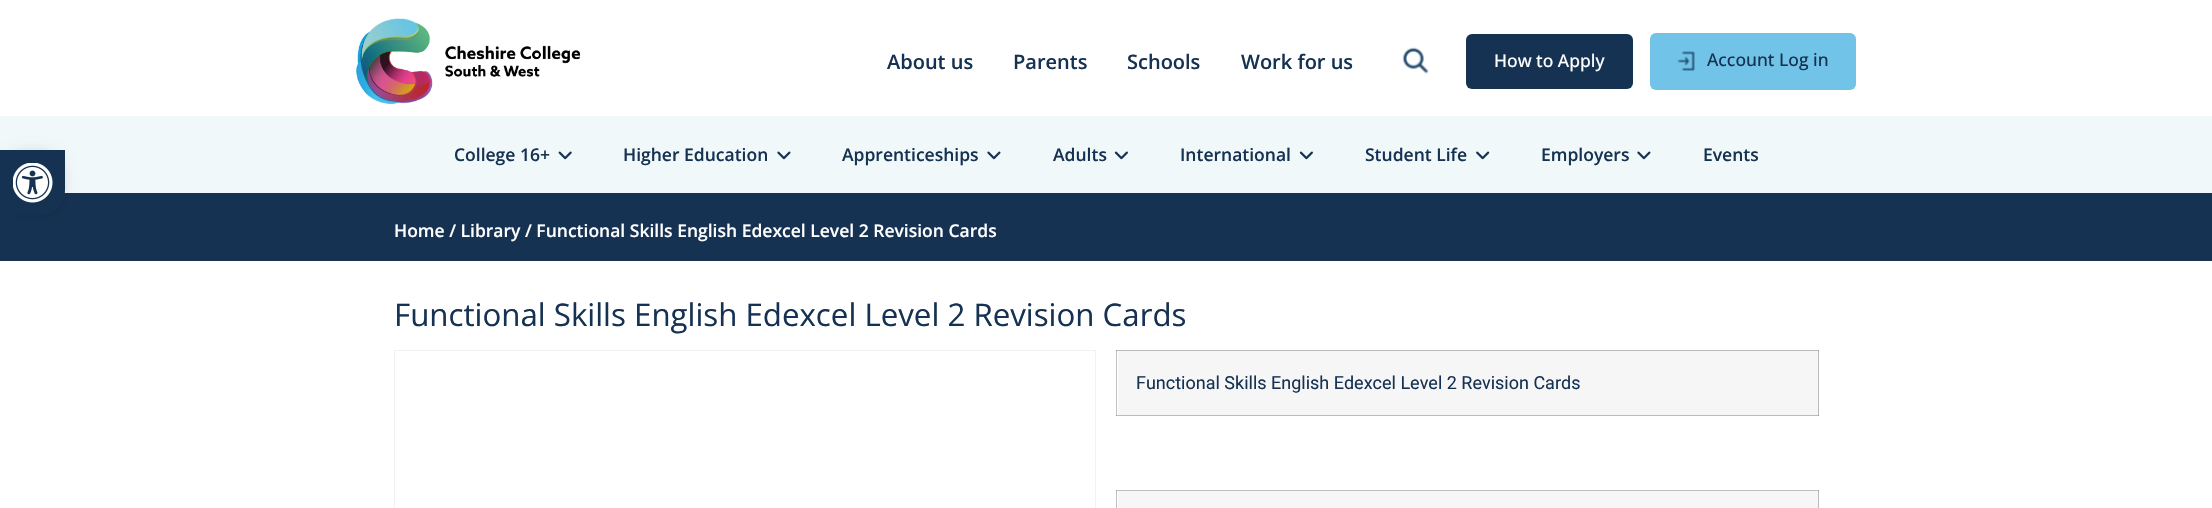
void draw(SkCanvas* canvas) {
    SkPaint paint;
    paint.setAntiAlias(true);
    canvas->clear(0xFFFFFFFF);
    paint.setColor(0xFFC0C0C0);
    canvas->drawRect(SkRect::MakeXYWH(1116, 490, 1, 18), paint);
    canvas->drawRect(SkRect::MakeXYWH(1116, 350, 1, 66), paint);
    canvas->drawRect(SkRect::MakeXYWH(1116, 415, 2, 1), paint);
    paint.setColor(0xFFA0A0A0);
    canvas->drawRect(SkRect::MakeXYWH(1116, 415, 1, 1), paint);
    paint.setColor(0xFFC0C0C0);
    canvas->drawRect(SkRect::MakeXYWH(1116, 350, 2, 1), paint);
    paint.setColor(0xFFA0A0A0);
    canvas->drawRect(SkRect::MakeXYWH(1116, 350, 1, 1), paint);
    canvas->drawImageRect(SkImages::DeferredFromEncodedData(SkData::MakeFromFileName("img1.png")), SkRect::MakeXYWH(356, 18, 225, 86), SkSamplingOptions());
    SkFont font1(fontMgr->matchFamilyStyle("Open Sans", SkFontStyle(600, SkFontStyle::kNormal_Width, SkFontStyle::kUpright_Slant)), 20);
    font1.setSubpixel(true);
    paint.setColor(0xFF163252);
    canvas->drawString("About us", 887, 69, font1, paint);
    canvas->drawString("Parents", 1013, 69, font1, paint);
    canvas->drawString("Schools", 1127, 69, font1, paint);
    canvas->drawString("Work for us", 1241, 69, font1, paint);
    canvas->drawImageRect(SkImages::DeferredFromEncodedData(SkData::MakeFromFileName("img2.png")), SkRect::MakeXYWH(1402, 47, 27, 27), SkSamplingOptions());
    canvas->drawRoundRect(SkRect::MakeXYWH(1466, 34, 167, 55), 6, 6, paint);
    SkFont font2(fontMgr->matchFamilyStyle("Open Sans", SkFontStyle(500, SkFontStyle::kNormal_Width, SkFontStyle::kUpright_Slant)), 17.5f);
    font2.setSubpixel(true);
    paint.setColor(0xFFFFFFFF);
    canvas->drawString("How to Apply", 1494, 67, font2, paint);
    paint.setColor(0xFF71C4E8);
    canvas->drawRoundRect(SkRect::MakeXYWH(1650, 33, 206, 57), 6, 6, paint);
    canvas->drawImageRect(SkImages::DeferredFromEncodedData(SkData::MakeFromFileName("img3.png")), SkRect::MakeXYWH(1677, 51, 18, 20), SkSamplingOptions());
    paint.setColor(0xFF163252);
    canvas->drawString("Account Log in", 1707, 66, font2, paint);
    paint.setColor(0xFFF0F8FA);
    canvas->drawRect(SkRect::MakeXYWH(0, 116, 2212, 77), paint);
    SkFont font3(fontMgr->matchFamilyStyle("Open Sans", SkFontStyle(600, SkFontStyle::kNormal_Width, SkFontStyle::kUpright_Slant)), 17.5f);
    font3.setSubpixel(true);
    paint.setColor(0xFF163252);
    canvas->drawString("College 16+", 454, 161, font3, paint);
    canvas->drawImageRect(SkImages::DeferredFromEncodedData(SkData::MakeFromFileName("img4.png")), SkRect::MakeXYWH(558, 151, 14, 9), SkSamplingOptions());
    canvas->drawString("Higher Education", 623, 161, font3, paint);
    canvas->drawImageRect(SkImages::DeferredFromEncodedData(SkData::MakeFromFileName("img5.png")), SkRect::MakeXYWH(777, 151, 14, 9), SkSamplingOptions());
    canvas->drawString("Apprenticeships", 842, 161, font3, paint);
    canvas->drawImageRect(SkImages::DeferredFromEncodedData(SkData::MakeFromFileName("img5.png")), SkRect::MakeXYWH(987, 151, 14, 9), SkSamplingOptions());
    canvas->drawString("Adults", 1053, 161, font3, paint);
    canvas->drawImageRect(SkImages::DeferredFromEncodedData(SkData::MakeFromFileName("img6.png")), SkRect::MakeXYWH(1114, 151, 14, 9), SkSamplingOptions());
    canvas->drawString("International", 1180, 161, font3, paint);
    canvas->drawImageRect(SkImages::DeferredFromEncodedData(SkData::MakeFromFileName("img6.png")), SkRect::MakeXYWH(1299, 151, 14, 9), SkSamplingOptions());
    canvas->drawString("Student Life", 1365, 161, font3, paint);
    canvas->drawImageRect(SkImages::DeferredFromEncodedData(SkData::MakeFromFileName("img7.png")), SkRect::MakeXYWH(1476, 151, 14, 9), SkSamplingOptions());
    canvas->drawString("Employers", 1541, 161, font3, paint);
    canvas->drawImageRect(SkImages::DeferredFromEncodedData(SkData::MakeFromFileName("img5.png")), SkRect::MakeXYWH(1637, 151, 14, 9), SkSamplingOptions());
    canvas->drawString("Events", 1703, 161, font3, paint);
    canvas->drawRect(SkRect::MakeXYWH(0, 193, 2212, 68), paint);
    paint.setColor(0x1A000000);
    paint.setMaskFilter(SkMaskFilter::MakeBlur(kNormal_SkBlurStyle, 6));
    canvas->drawRoundRect(SkRect::MakeXYWH(0, 150, 65, 65), 25, 25, paint);
    paint.setMaskFilter(nullptr);
    paint.setColor(0xFF163252);
    canvas->drawPath(SkPathBuilder().moveTo(0, 150).lineTo(65, 150).lineTo(65, 190).cubicTo(65, 204, 54, 215, 40, 215).lineTo(0, 215).close().detach(), paint);
    canvas->drawImageRect(SkImages::DeferredFromEncodedData(SkData::MakeFromFileName("img8.png")), SkRect::MakeXYWH(13, 163, 40, 40), SkSamplingOptions());
    paint.setColor(0xFFFFFFFF);
    canvas->drawString("Home / Library / Functional Skills English Edexcel Level 2 Revision Cards", 394, 237, font3, paint);
    SkFont font4(fontMgr->matchFamilyStyle("Open Sans", SkFontStyle::Normal()), 31.25f);
    font4.setSubpixel(true);
    paint.setColor(0xFF163252);
    canvas->drawString("Functional Skills English Edexcel Level 2 Revision Cards", 394, 326, font4, paint);
    paint.setStyle(SkPaint::kStroke_Style);
    paint.setStrokeWidth(1);
    paint.setColor(0xFFF2F2F2);
    canvas->drawRect(SkRect::MakeXYWH(394.5f, 350.5f, 701, 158), paint);
    paint.setStyle(SkPaint::kFill_Style);
    paint.setColor(0xFFF6F6F6);
    canvas->drawRect(SkRect::MakeXYWH(1118, 351, 700, 64), paint);
    paint.setColor(0xFFBBBBBB);
    canvas->drawRect(SkRect::MakeXYWH(1118, 415, 701, 1), paint);
    canvas->drawRect(SkRect::MakeXYWH(1818, 350, 1, 66), paint);
    paint.setColor(0xFF9E9E9E);
    canvas->drawRect(SkRect::MakeXYWH(1818, 415, 1, 1), paint);
    paint.setColor(0xFFBBBBBB);
    canvas->drawRect(SkRect::MakeXYWH(1118, 350, 701, 1), paint);
    paint.setColor(0xFF9E9E9E);
    canvas->drawRect(SkRect::MakeXYWH(1818, 350, 1, 1), paint);
    SkFont font5(fontMgr->matchFamilyStyle("Roboto", SkFontStyle::Normal()), 18);
    font5.setSubpixel(true);
    paint.setColor(0xFF163252);
    canvas->drawString("Functional Skills English Edexcel Level 2 Revision Cards", 1136, 389, font5, paint);
    paint.setColor(0xFFF6F6F6);
    canvas->drawRect(SkRect::MakeXYWH(1118, 491, 700, 17), paint);
    paint.setColor(0xFFBBBBBB);
    canvas->drawRect(SkRect::MakeXYWH(1818, 491, 1, 17), paint);
    paint.setColor(0xFFC0C0C0);
    canvas->drawRect(SkRect::MakeXYWH(1116, 490, 703, 1), paint);
    paint.setColor(0xFFA0A0A0);
    canvas->drawRect(SkRect::MakeXYWH(1116, 490, 1, 1), paint);
    canvas->drawRect(SkRect::MakeXYWH(1818, 490, 1, 1), paint);
}
